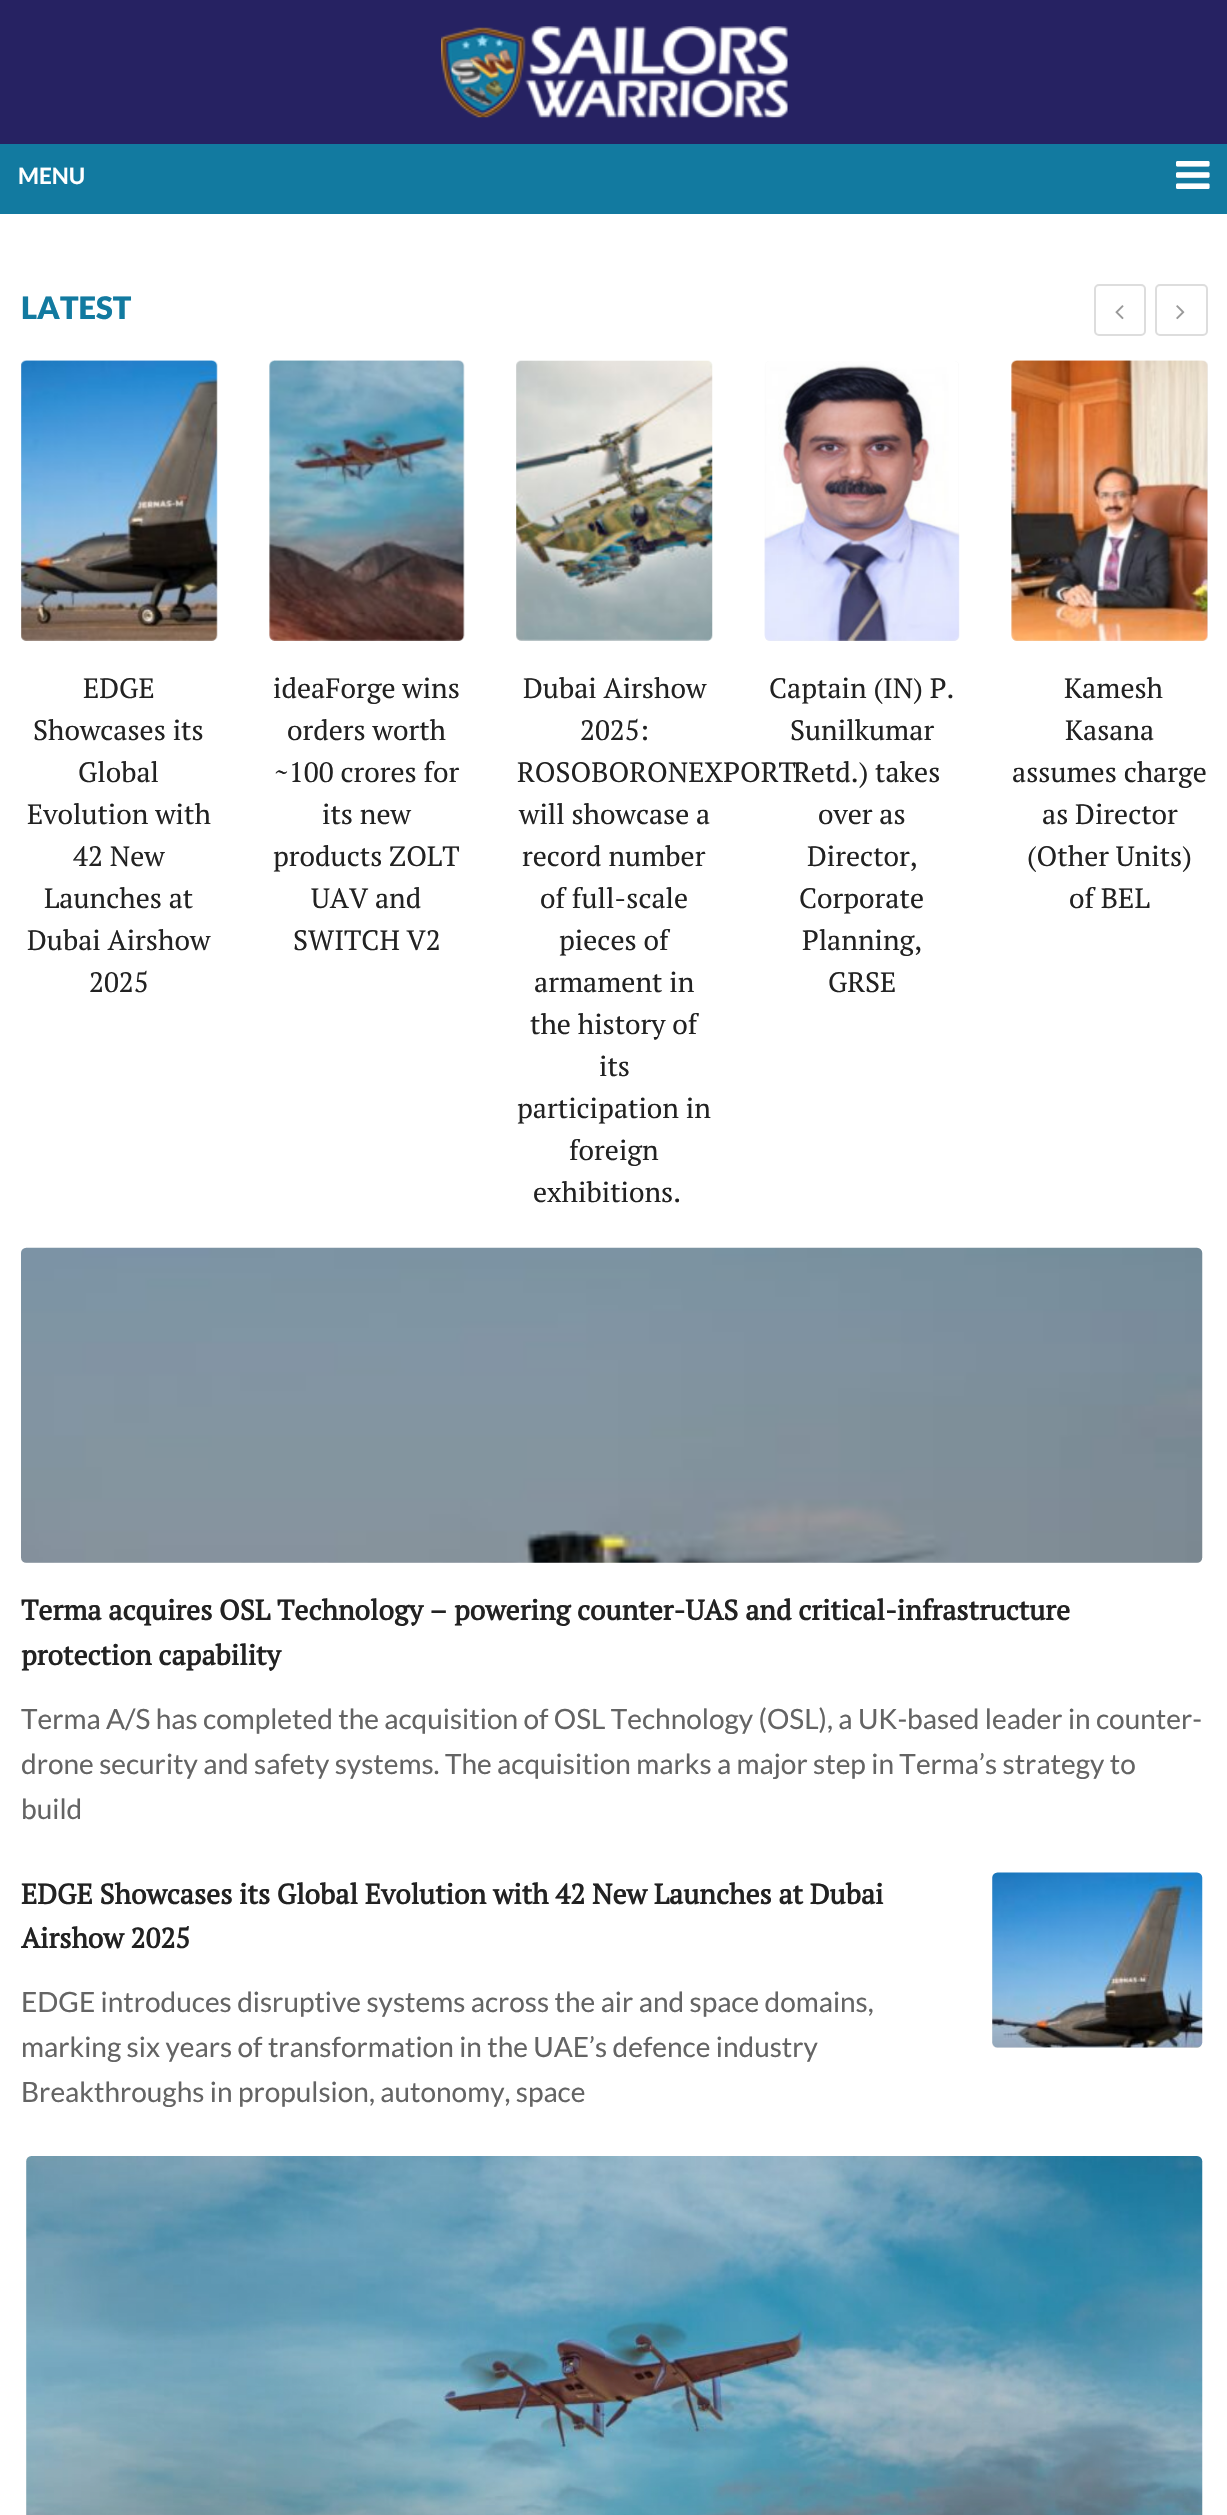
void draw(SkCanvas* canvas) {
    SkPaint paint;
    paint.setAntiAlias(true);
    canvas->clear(0xFFFFFFFF);
    paint.setColor(0xFF262262);
    canvas->drawRect(SkRect::MakeXYWH(0, 0, 1227, 144), paint);
    canvas->drawImageRect(SkImages::DeferredFromEncodedData(SkData::MakeFromFileName("img1.png")), SkRect::MakeXYWH(441, 26, 347, 92), SkSamplingOptions());
    paint.setColor(0xFF127AA0);
    canvas->drawRect(SkRect::MakeXYWH(0, 144, 1227, 70), paint);
    SkFont font1(fontMgr->matchFamilyStyle("Lato", SkFontStyle::Bold()), 22.5f);
    font1.setSubpixel(true);
    paint.setColor(0xFFFFFFFF);
    canvas->drawString("MENU", 18, 184, font1, paint);
    canvas->drawImageRect(SkImages::DeferredFromEncodedData(SkData::MakeFromFileName("img2.png")), SkRect::MakeXYWH(1176, 161, 34, 28), SkSamplingOptions());
    SkFont font2(fontMgr->matchFamilyStyle("Lato", SkFontStyle(900, SkFontStyle::kNormal_Width, SkFontStyle::kUpright_Slant)), 31);
    font2.setSubpixel(true);
    paint.setColor(0xFF127AA0);
    canvas->drawString("LATEST", 21, 319, font2, paint);
    paint.setStyle(SkPaint::kStroke_Style);
    paint.setStrokeWidth(2);
    paint.setColor(0xFFDDDDDD);
    canvas->drawRoundRect(SkRect::MakeXYWH(1095, 285, 50, 50), 4, 4, paint);
    canvas->drawImageRect(SkImages::DeferredFromEncodedData(SkData::MakeFromFileName("img3.png")), SkRect::MakeXYWH(1115, 305, 9, 15), SkSamplingOptions());
    canvas->drawRoundRect(SkRect::MakeXYWH(1156, 285, 51, 50), 4, 4, paint);
    canvas->drawImageRect(SkImages::DeferredFromEncodedData(SkData::MakeFromFileName("img4.png")), SkRect::MakeXYWH(1176, 305, 9, 15), SkSamplingOptions());
    paint.setStyle(SkPaint::kFill_Style);
    paint.setColor(0xFFEEEEEE);
    canvas->drawRoundRect(SkRect::MakeXYWH(21, 361, 196, 280), 5, 5, paint);
    canvas->drawImageRect(SkImages::DeferredFromEncodedData(SkData::MakeFromFileName("img5.png")), SkRect::MakeXYWH(21, 360, 197, 281), SkSamplingOptions());
    SkFont font3(fontMgr->matchFamilyStyle("PT Serif", SkFontStyle::Normal()), 28);
    font3.setSubpixel(true);
    paint.setColor(0xFF222222);
    canvas->drawString("EDGE", 83, 698, font3, paint);
    canvas->drawString("Showcases its", 33, 740, font3, paint);
    canvas->drawString("Global", 78, 782, font3, paint);
    canvas->drawString("Evolution with", 27, 824, font3, paint);
    canvas->drawString("42 New", 73, 866, font3, paint);
    canvas->drawString("Launches at", 44, 908, font3, paint);
    canvas->drawString("Dubai Airshow", 27, 950, font3, paint);
    canvas->drawString("2025", 89, 992, font3, paint);
    paint.setColor(0xFFEEEEEE);
    canvas->drawRoundRect(SkRect::MakeXYWH(270, 361, 194, 280), 5, 5, paint);
    canvas->drawImageRect(SkImages::DeferredFromEncodedData(SkData::MakeFromFileName("img6.png")), SkRect::MakeXYWH(269, 360, 196, 281), SkSamplingOptions());
    paint.setColor(0xFF222222);
    canvas->drawString("ideaForge wins", 273, 698, font3, paint);
    canvas->drawString("orders worth", 287, 740, font3, paint);
    canvas->drawString("~100 crores for", 274, 782, font3, paint);
    canvas->drawString("its new", 322, 824, font3, paint);
    canvas->drawString("products ZOLT", 273, 866, font3, paint);
    canvas->drawString("UAV and", 311, 908, font3, paint);
    canvas->drawString("SWITCH V2", 293, 950, font3, paint);
    paint.setColor(0xFFEEEEEE);
    canvas->drawRoundRect(SkRect::MakeXYWH(516, 361, 196, 280), 5, 5, paint);
    canvas->drawImageRect(SkImages::DeferredFromEncodedData(SkData::MakeFromFileName("img7.png")), SkRect::MakeXYWH(516, 360, 197, 281), SkSamplingOptions());
    paint.setColor(0xFF222222);
    canvas->drawString("Dubai Airshow", 523, 698, font3, paint);
    canvas->drawString("2025:", 580, 740, font3, paint);
    canvas->drawString("ROSOBORONEXPORT", 517, 782, font3, paint);
    canvas->drawString("will showcase a", 519, 824, font3, paint);
    canvas->drawString("record number", 522, 866, font3, paint);
    canvas->drawString("of full-scale", 540, 908, font3, paint);
    canvas->drawString("pieces of", 559, 950, font3, paint);
    canvas->drawString("armament in", 534, 992, font3, paint);
    canvas->drawString("the history of", 530, 1034, font3, paint);
    canvas->drawString("its", 599, 1076, font3, paint);
    canvas->drawString("participation in", 517, 1118, font3, paint);
    canvas->drawString("foreign", 569, 1160, font3, paint);
    canvas->drawString("exhibitions.", 533, 1202, font3, paint);
    paint.setColor(0xFFEEEEEE);
    canvas->drawRoundRect(SkRect::MakeXYWH(765, 361, 194, 280), 5, 5, paint);
    canvas->drawImageRect(SkImages::DeferredFromEncodedData(SkData::MakeFromFileName("img8.png")), SkRect::MakeXYWH(764, 361, 196, 280), SkSamplingOptions());
    paint.setColor(0xFF222222);
    canvas->drawString("Captain (IN) P.", 769, 698, font3, paint);
    canvas->drawString("Sunilkumar", 790, 740, font3, paint);
    canvas->drawString("Retd.) takes", 793, 782, font3, paint);
    canvas->drawString("over as", 818, 824, font3, paint);
    canvas->drawString("Director,", 807, 866, font3, paint);
    canvas->drawString("Corporate", 799, 908, font3, paint);
    canvas->drawString("Planning,", 802, 950, font3, paint);
    canvas->drawString("GRSE", 828, 992, font3, paint);
    paint.setColor(0xFFEEEEEE);
    canvas->drawRoundRect(SkRect::MakeXYWH(1012, 361, 196, 280), 5, 5, paint);
    canvas->drawImageRect(SkImages::DeferredFromEncodedData(SkData::MakeFromFileName("img9.png")), SkRect::MakeXYWH(1011, 360, 197, 281), SkSamplingOptions());
    paint.setColor(0xFF222222);
    canvas->drawString("Kamesh", 1064, 698, font3, paint);
    canvas->drawString("Kasana", 1065, 740, font3, paint);
    canvas->drawString("assumes charge", 1012, 782, font3, paint);
    canvas->drawString("as Director", 1042, 824, font3, paint);
    canvas->drawString("(Other Units)", 1027, 866, font3, paint);
    canvas->drawString("of BEL", 1069, 908, font3, paint);
    paint.setColor(0xFFEEEEEE);
    canvas->drawRoundRect(SkRect::MakeXYWH(21, 1248, 1181, 315), 5, 5, paint);
    canvas->drawImageRect(SkImages::DeferredFromEncodedData(SkData::MakeFromFileName("img10.png")), SkRect::MakeXYWH(21, 1247, 1182, 316), SkSamplingOptions());
    SkFont font4(fontMgr->matchFamilyStyle("PT Serif", SkFontStyle::Bold()), 28);
    font4.setSubpixel(true);
    paint.setColor(0xFF222222);
    canvas->drawString("Terma acquires OSL Technology – powering counter-UAS and critical-infrastructure", 21, 1620, font4, paint);
    canvas->drawString("protection capability", 21, 1665, font4, paint);
    SkFont font5(fontMgr->matchFamilyStyle("Lato", SkFontStyle::Normal()), 28);
    font5.setSubpixel(true);
    paint.setColor(0xFF646464);
    canvas->drawString("Terma A/S has completed the acquisition of OSL Technology (OSL), a UK-based leader in counter-", 21, 1729, font5, paint);
    canvas->drawString("drone security and safety systems. The acquisition marks a major step in Terma’s strategy to", 21, 1774, font5, paint);
    canvas->drawString("build", 21, 1819, font5, paint);
    paint.setColor(0xFF222222);
    canvas->drawString("EDGE Showcases its Global Evolution with 42 New Launches at Dubai", 21, 1904, font4, paint);
    canvas->drawString("Airshow 2025", 21, 1948, font4, paint);
    paint.setColor(0xFFEEEEEE);
    canvas->drawRoundRect(SkRect::MakeXYWH(992, 1873, 210, 175), 5, 5, paint);
    canvas->drawImageRect(SkImages::DeferredFromEncodedData(SkData::MakeFromFileName("img11.png")), SkRect::MakeXYWH(992, 1872, 211, 176), SkSamplingOptions());
    paint.setColor(0xFF646464);
    canvas->drawString("EDGE introduces disruptive systems across the air and space domains,", 21, 2012, font5, paint);
    canvas->drawString("marking six years of transformation in the UAE’s defence industry", 21, 2057, font5, paint);
    canvas->drawString("Breakthroughs in propulsion, autonomy, space", 21, 2102, font5, paint);
    paint.setColor(0xFFEEEEEE);
    canvas->drawRoundRect(SkRect::MakeXYWH(26, 2156, 1176, 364), 5, 5, paint);
    canvas->drawImageRect(SkImages::DeferredFromEncodedData(SkData::MakeFromFileName("img12.png")), SkRect::MakeXYWH(26, 2156, 1177, 359), SkSamplingOptions());
}
